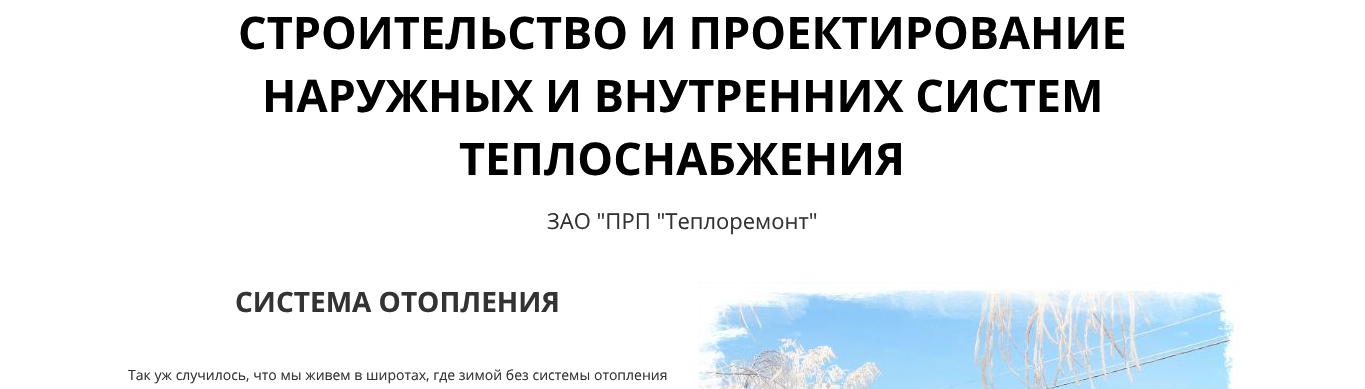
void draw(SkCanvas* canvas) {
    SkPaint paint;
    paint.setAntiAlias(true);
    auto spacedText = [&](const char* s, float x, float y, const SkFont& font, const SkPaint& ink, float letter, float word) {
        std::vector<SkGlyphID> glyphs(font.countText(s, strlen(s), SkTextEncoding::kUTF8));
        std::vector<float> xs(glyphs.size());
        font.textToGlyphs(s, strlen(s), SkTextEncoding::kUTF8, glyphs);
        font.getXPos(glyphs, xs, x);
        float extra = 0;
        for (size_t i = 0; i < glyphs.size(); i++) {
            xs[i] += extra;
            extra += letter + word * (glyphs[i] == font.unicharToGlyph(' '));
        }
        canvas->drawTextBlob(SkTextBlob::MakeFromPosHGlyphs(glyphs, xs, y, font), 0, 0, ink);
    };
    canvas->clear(0xFFFFFFFF);
    SkFont font1(fontMgr->matchFamilyStyle("Open Sans", SkFontStyle::Bold()), 45);
    font1.setSubpixel(true);
    paint.setColor(0xFF000000);
    canvas->drawString("СТРОИТЕЛЬСТВО И ПРОЕКТИРОВАНИЕ", 238, 49, font1, paint);
    canvas->drawString("НАРУЖНЫХ И ВНУТРЕННИХ СИСТЕМ", 262, 112, font1, paint);
    canvas->drawString("ТЕПЛОСНАБЖЕНИЯ", 459, 175, font1, paint);
    SkFont font2(fontMgr->matchFamilyStyle("Open Sans", SkFontStyle::Normal()), 22);
    font2.setSubpixel(true);
    paint.setColor(0xFF333333);
    canvas->drawString("ЗАО \"ПРП \"Теплоремонт\"", 547, 229, font2, paint);
    SkFont font3(fontMgr->matchFamilyStyle("Open Sans", SkFontStyle::Bold()), 28);
    font3.setSubpixel(true);
    canvas->drawString("СИСТЕМА ОТОПЛЕНИЯ", 235, 312, font3, paint);
    SkFont font4(fontMgr->matchFamilyStyle("Open Sans", SkFontStyle::Normal()), 14);
    font4.setSubpixel(true);
    spacedText("Так уж случилось, что мы живем в широтах, где зимой без системы отопления", 128, 380, font4, paint, 0, 0.1f);
    canvas->drawImageRect(SkImages::DeferredFromEncodedData(SkData::MakeFromFileName("img1.png")), SkRect::MakeXYWH(698, 282, 540, 107), SkSamplingOptions());
}
